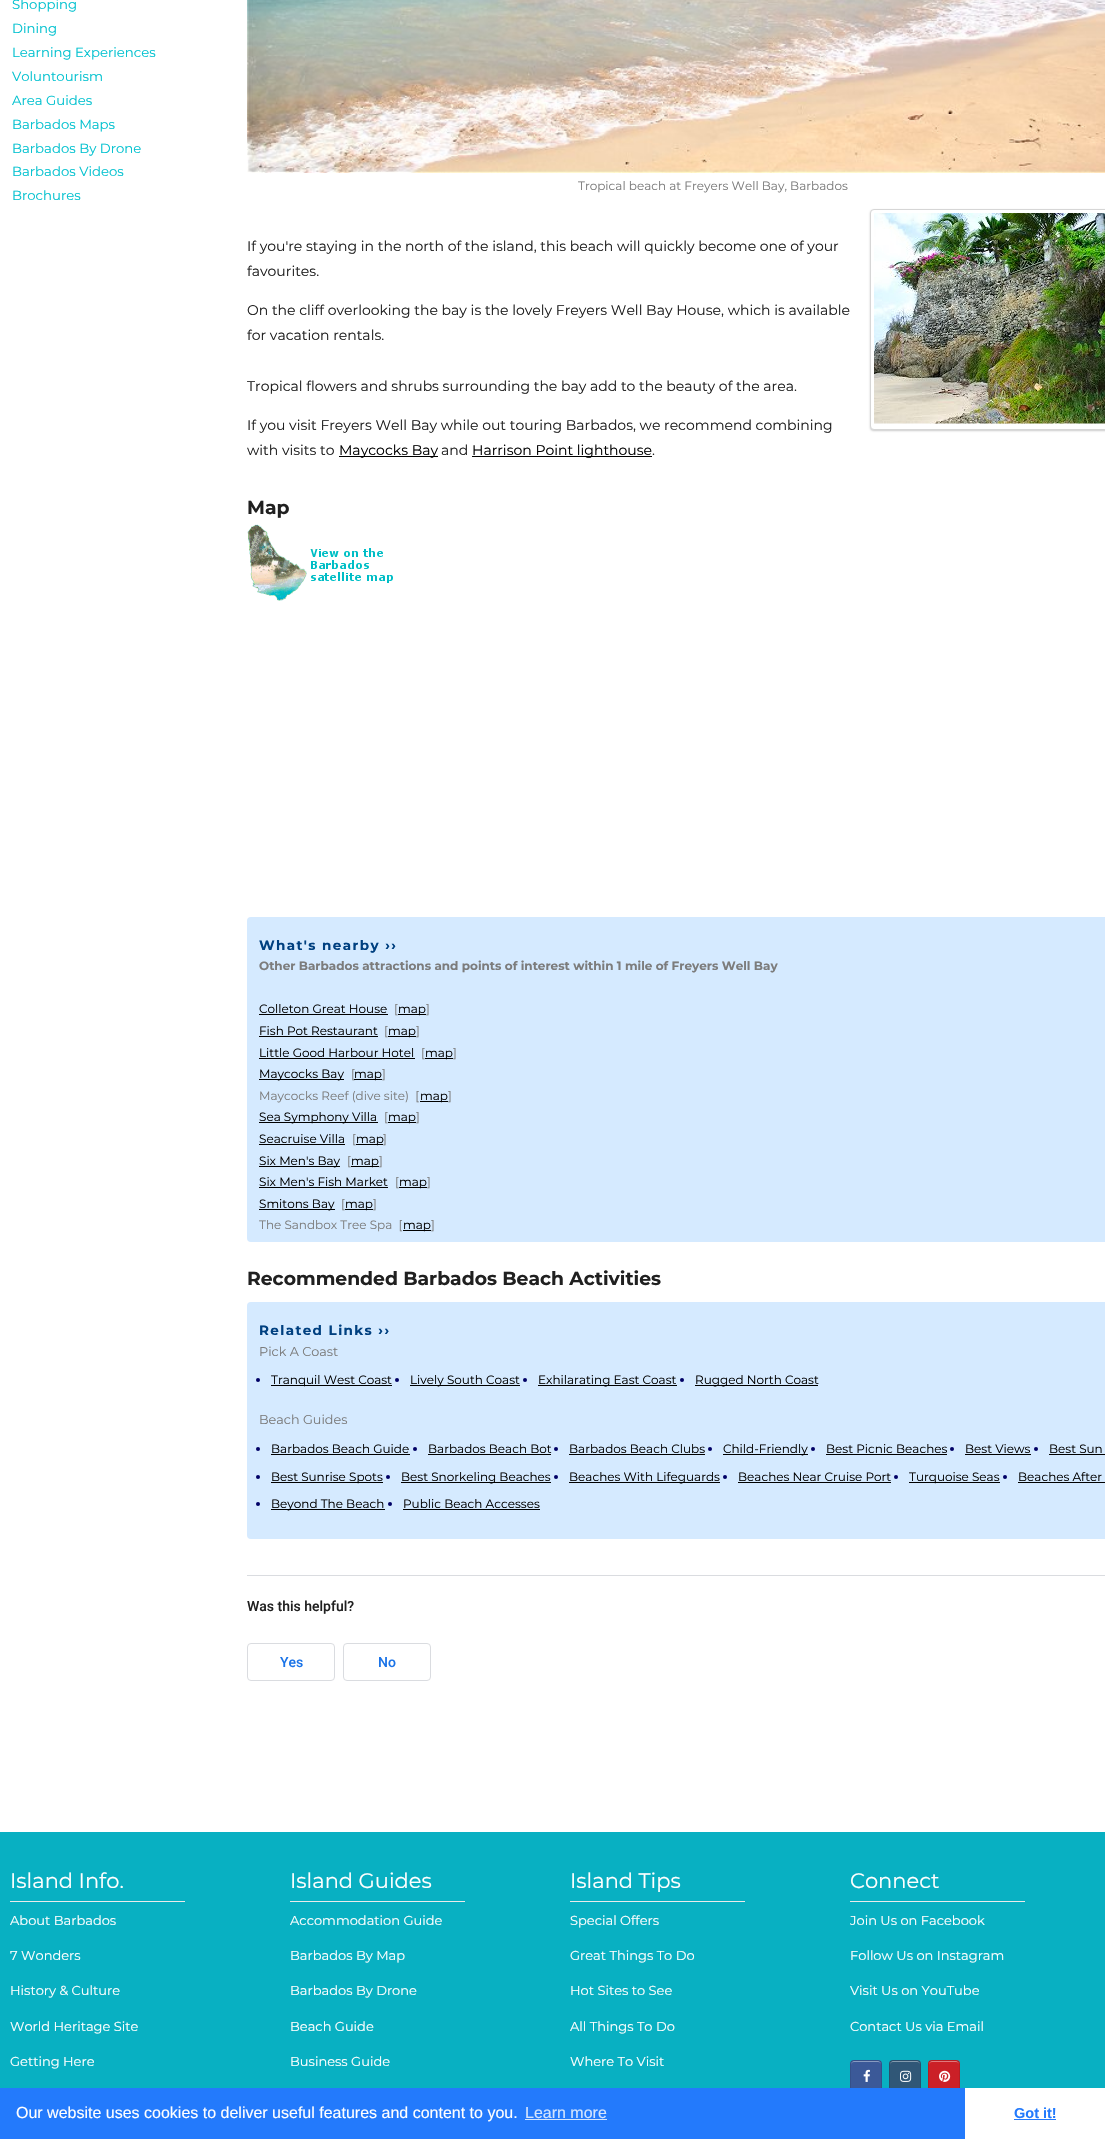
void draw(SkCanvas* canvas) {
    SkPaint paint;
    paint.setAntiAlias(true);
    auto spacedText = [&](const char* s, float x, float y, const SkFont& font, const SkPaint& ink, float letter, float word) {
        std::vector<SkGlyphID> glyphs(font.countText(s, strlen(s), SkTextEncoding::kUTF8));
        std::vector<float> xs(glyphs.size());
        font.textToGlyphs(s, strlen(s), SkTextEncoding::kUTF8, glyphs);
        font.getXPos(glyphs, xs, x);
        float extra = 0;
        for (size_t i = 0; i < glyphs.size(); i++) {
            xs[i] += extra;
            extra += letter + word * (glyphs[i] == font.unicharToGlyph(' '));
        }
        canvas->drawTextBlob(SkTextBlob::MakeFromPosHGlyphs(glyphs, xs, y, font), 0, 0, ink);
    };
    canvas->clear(0xFFFFFFFF);
    SkFont font1(fontMgr->matchFamilyStyle("Montserrat", SkFontStyle::Normal()), 13.25f);
    font1.setSubpixel(true);
    paint.setColor(0xFF00C1CF);
    canvas->drawString("Shopping", 12, 9, font1, paint);
    canvas->drawString("Dining", 12, 33, font1, paint);
    canvas->drawString("Learning Experiences", 12, 57, font1, paint);
    canvas->drawString("Voluntourism", 12, 81, font1, paint);
    canvas->drawString("Area Guides", 12, 105, font1, paint);
    canvas->drawString("Barbados Maps", 12, 129, font1, paint);
    canvas->drawString("Barbados By Drone", 12, 153, font1, paint);
    canvas->drawString("Barbados Videos", 12, 176, font1, paint);
    canvas->drawString("Brochures", 12, 200, font1, paint);
    canvas->drawImageRect(SkImages::DeferredFromEncodedData(SkData::MakeFromFileName("img1.png")), SkRect::MakeXYWH(247, 0, 858, 173), SkSamplingOptions());
    SkFont font2(fontMgr->matchFamilyStyle("Montserrat", SkFontStyle::Normal()), 12);
    font2.setSubpixel(true);
    paint.setColor(0xFF7C7C7C);
    canvas->drawString("Tropical beach at Freyers Well Bay, Barbados", 578, 190, font2, paint);
    SkFont font3(fontMgr->matchFamilyStyle("Montserrat", SkFontStyle::Normal()), 14);
    font3.setSubpixel(true);
    paint.setColor(0xFF202020);
    canvas->drawString("If you're staying in the north of the island, this beach will quickly become one of your", 247, 251, font3, paint);
    canvas->drawString("favourites.", 247, 276, font3, paint);
    paint.setColor(0x33000000);
    paint.setMaskFilter(SkMaskFilter::MakeBlur(kNormal_SkBlurStyle, 1));
    canvas->drawRoundRect(SkRect::MakeXYWH(870, 210, 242, 221), 4, 4, paint);
    paint.setMaskFilter(nullptr);
    paint.setColor(0xFFFFFFFF);
    canvas->drawRoundRect(SkRect::MakeXYWH(870.5f, 209.5f, 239, 220), 3.5f, 3.5f, paint);
    paint.setStyle(SkPaint::kStroke_Style);
    paint.setStrokeWidth(1);
    paint.setColor(0xFFD6D6D6);
    canvas->drawRoundRect(SkRect::MakeXYWH(870.5f, 209.5f, 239, 220), 3.5f, 3.5f, paint);
    canvas->drawImageRect(SkImages::DeferredFromEncodedData(SkData::MakeFromFileName("img2.png")), SkRect::MakeXYWH(874, 213, 231, 211), SkSamplingOptions());
    paint.setStyle(SkPaint::kFill_Style);
    paint.setColor(0xFF202020);
    canvas->drawString("On the cliff overlooking the bay is the lovely Freyers Well Bay House, which is available", 247, 315, font3, paint);
    canvas->drawString("for vacation rentals.", 247, 340, font3, paint);
    canvas->drawString("Tropical flowers and shrubs surrounding the bay add to the beauty of the area.", 247, 391, font3, paint);
    canvas->drawString("If you visit Freyers Well Bay while out touring Barbados, we recommend combining", 247, 430, font3, paint);
    canvas->drawString("with visits to", 247, 455, font3, paint);
    paint.setColor(0xFF000000);
    canvas->drawRect(SkRect::MakeXYWH(339, 456, 99, 1), paint);
    canvas->drawString("Maycocks Bay", 339, 455, font3, paint);
    paint.setColor(0xFF202020);
    canvas->drawString("and", 441, 455, font3, paint);
    paint.setColor(0xFF000000);
    canvas->drawRect(SkRect::MakeXYWH(472, 456, 180, 1), paint);
    canvas->drawString("Harrison Point lighthouse", 472, 455, font3, paint);
    paint.setColor(0xFF202020);
    canvas->drawString(".", 652, 455, font3, paint);
    SkFont font4(fontMgr->matchFamilyStyle("Montserrat", SkFontStyle::Bold()), 18.75f);
    font4.setSubpixel(true);
    canvas->drawString("Map", 247, 514, font4, paint);
    canvas->drawImageRect(SkImages::DeferredFromEncodedData(SkData::MakeFromFileName("img3.png")), SkRect::MakeXYWH(247, 524, 146, 77), SkSamplingOptions());
    paint.setColor(0xFFD5EAFF);
    canvas->drawRoundRect(SkRect::MakeXYWH(247, 917, 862, 325), 4, 4, paint);
    SkFont font5(fontMgr->matchFamilyStyle("Montserrat", SkFontStyle::Bold()), 13.5f);
    font5.setSubpixel(true);
    paint.setColor(0xFF004080);
    spacedText("What's nearby ››", 259, 950, font5, paint, 1.4f, 0);
    SkFont font6(fontMgr->matchFamilyStyle("Montserrat", SkFontStyle::Bold()), 12);
    font6.setSubpixel(true);
    paint.setColor(0xFF7C7C7C);
    canvas->drawString("Other Barbados attractions and points of interest within 1 mile of Freyers Well Bay", 259, 970, font6, paint);
    paint.setColor(0xFF000000);
    canvas->drawString("Colleton Great House", 259, 1013, font2, paint);
    canvas->drawRect(SkRect::MakeXYWH(259, 1014, 129, 1), paint);
    paint.setColor(0xFF7C7C7C);
    canvas->drawString("[", 394, 1013, font2, paint);
    paint.setColor(0xFF000000);
    canvas->drawRect(SkRect::MakeXYWH(398, 1014, 28, 1), paint);
    canvas->drawString("map", 398, 1013, font2, paint);
    paint.setColor(0xFF7C7C7C);
    canvas->drawString("]", 426, 1013, font2, paint);
    paint.setColor(0xFF000000);
    canvas->drawString("Fish Pot Restaurant", 259, 1035, font2, paint);
    canvas->drawRect(SkRect::MakeXYWH(259, 1036, 119, 1), paint);
    paint.setColor(0xFF7C7C7C);
    canvas->drawString("[", 384, 1035, font2, paint);
    paint.setColor(0xFF000000);
    canvas->drawRect(SkRect::MakeXYWH(388, 1036, 28, 1), paint);
    canvas->drawString("map", 388, 1035, font2, paint);
    paint.setColor(0xFF7C7C7C);
    canvas->drawString("]", 416, 1035, font2, paint);
    paint.setColor(0xFF000000);
    canvas->drawString("Little Good Harbour Hotel", 259, 1057, font2, paint);
    canvas->drawRect(SkRect::MakeXYWH(259, 1058, 156, 1), paint);
    paint.setColor(0xFF7C7C7C);
    canvas->drawString("[", 421, 1057, font2, paint);
    paint.setColor(0xFF000000);
    canvas->drawRect(SkRect::MakeXYWH(425, 1058, 28, 1), paint);
    canvas->drawString("map", 425, 1057, font2, paint);
    paint.setColor(0xFF7C7C7C);
    canvas->drawString("]", 453, 1057, font2, paint);
    paint.setColor(0xFF000000);
    canvas->drawRect(SkRect::MakeXYWH(259, 1079, 85, 1), paint);
    canvas->drawString("Maycocks Bay", 259, 1078, font2, paint);
    paint.setColor(0xFF7C7C7C);
    canvas->drawString("[", 351, 1078, font2, paint);
    paint.setColor(0xFF000000);
    canvas->drawRect(SkRect::MakeXYWH(354, 1079, 28, 1), paint);
    canvas->drawString("map", 354, 1078, font2, paint);
    paint.setColor(0xFF7C7C7C);
    canvas->drawString("]", 382, 1078, font2, paint);
    canvas->drawString("Maycocks Reef (dive site)  [", 259, 1100, font2, paint);
    paint.setColor(0xFF000000);
    canvas->drawRect(SkRect::MakeXYWH(420, 1101, 28, 1), paint);
    canvas->drawString("map", 420, 1100, font2, paint);
    paint.setColor(0xFF7C7C7C);
    canvas->drawString("]", 448, 1100, font2, paint);
    paint.setColor(0xFF000000);
    canvas->drawRect(SkRect::MakeXYWH(259, 1122, 119, 1), paint);
    canvas->drawString("Sea Symphony Villa", 259, 1121, font2, paint);
    paint.setColor(0xFF7C7C7C);
    canvas->drawString("[", 384, 1121, font2, paint);
    paint.setColor(0xFF000000);
    canvas->drawRect(SkRect::MakeXYWH(388, 1122, 28, 1), paint);
    canvas->drawString("map", 388, 1121, font2, paint);
    paint.setColor(0xFF7C7C7C);
    canvas->drawString("]", 416, 1121, font2, paint);
    paint.setColor(0xFF000000);
    canvas->drawString("Seacruise Villa", 259, 1143, font2, paint);
    canvas->drawRect(SkRect::MakeXYWH(259, 1144, 86, 1), paint);
    paint.setColor(0xFF7C7C7C);
    canvas->drawString("[", 352, 1143, font2, paint);
    paint.setColor(0xFF000000);
    canvas->drawRect(SkRect::MakeXYWH(356, 1144, 27, 1), paint);
    canvas->drawString("map", 356, 1143, font2, paint);
    paint.setColor(0xFF7C7C7C);
    canvas->drawString("]", 383, 1143, font2, paint);
    paint.setColor(0xFF000000);
    canvas->drawRect(SkRect::MakeXYWH(259, 1166, 81, 1), paint);
    canvas->drawString("Six Men's Bay", 259, 1165, font2, paint);
    paint.setColor(0xFF7C7C7C);
    canvas->drawString("[", 347, 1165, font2, paint);
    paint.setColor(0xFF000000);
    canvas->drawRect(SkRect::MakeXYWH(351, 1166, 28, 1), paint);
    canvas->drawString("map", 351, 1165, font2, paint);
    paint.setColor(0xFF7C7C7C);
    canvas->drawString("]", 379, 1165, font2, paint);
    paint.setColor(0xFF000000);
    canvas->drawString("Six Men's Fish Market", 259, 1186, font2, paint);
    canvas->drawRect(SkRect::MakeXYWH(259, 1187, 129, 1), paint);
    paint.setColor(0xFF7C7C7C);
    canvas->drawString("[", 395, 1186, font2, paint);
    paint.setColor(0xFF000000);
    canvas->drawRect(SkRect::MakeXYWH(399, 1187, 28, 1), paint);
    canvas->drawString("map", 399, 1186, font2, paint);
    paint.setColor(0xFF7C7C7C);
    canvas->drawString("]", 427, 1186, font2, paint);
    paint.setColor(0xFF000000);
    canvas->drawRect(SkRect::MakeXYWH(259, 1209, 76, 1), paint);
    canvas->drawString("Smitons Bay", 259, 1208, font2, paint);
    paint.setColor(0xFF7C7C7C);
    canvas->drawString("[", 341, 1208, font2, paint);
    paint.setColor(0xFF000000);
    canvas->drawRect(SkRect::MakeXYWH(345, 1209, 28, 1), paint);
    canvas->drawString("map", 345, 1208, font2, paint);
    paint.setColor(0xFF7C7C7C);
    canvas->drawString("]", 373, 1208, font2, paint);
    canvas->drawString("The Sandbox Tree Spa  [", 259, 1229, font2, paint);
    paint.setColor(0xFF000000);
    canvas->drawRect(SkRect::MakeXYWH(403, 1230, 28, 1), paint);
    canvas->drawString("map", 403, 1229, font2, paint);
    paint.setColor(0xFF7C7C7C);
    canvas->drawString("]", 431, 1229, font2, paint);
    paint.setColor(0xFF202020);
    canvas->drawString("Recommended Barbados Beach Activities", 247, 1285, font4, paint);
    paint.setColor(0xFFD5EAFF);
    canvas->drawRoundRect(SkRect::MakeXYWH(247, 1302, 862, 237), 4, 4, paint);
    paint.setColor(0xFF004080);
    spacedText("Related Links ››", 259, 1335, font5, paint, 1.4f, 0);
    SkFont font7(fontMgr->matchFamilyStyle("Montserrat", SkFontStyle::Normal()), 12.75f);
    font7.setSubpixel(true);
    paint.setColor(0xFF7C7C7C);
    canvas->drawString("Pick A Coast", 259, 1356, font7, paint);
    paint.setColor(0xFF000066);
    canvas->drawCircle(258, 1380, 2, paint);
    paint.setColor(0xFF000000);
    canvas->drawRect(SkRect::MakeXYWH(271, 1385, 121, 1), paint);
    canvas->drawString("Tranquil West Coast", 271, 1384, font2, paint);
    paint.setColor(0xFF000066);
    canvas->drawCircle(397, 1380, 2, paint);
    paint.setColor(0xFF000000);
    canvas->drawRect(SkRect::MakeXYWH(410, 1385, 110, 1), paint);
    canvas->drawString("Lively South Coast", 410, 1384, font2, paint);
    paint.setColor(0xFF000066);
    canvas->drawCircle(525, 1380, 2, paint);
    paint.setColor(0xFF000000);
    canvas->drawRect(SkRect::MakeXYWH(538, 1385, 139, 1), paint);
    canvas->drawString("Exhilarating East Coast", 538, 1384, font2, paint);
    paint.setColor(0xFF000066);
    canvas->drawCircle(682, 1380, 2, paint);
    paint.setColor(0xFF000000);
    canvas->drawRect(SkRect::MakeXYWH(695, 1385, 123, 1), paint);
    canvas->drawString("Rugged North Coast", 695, 1384, font2, paint);
    paint.setColor(0xFF7C7C7C);
    canvas->drawString("Beach Guides", 259, 1424, font7, paint);
    paint.setColor(0xFF000066);
    canvas->drawCircle(258, 1449, 2, paint);
    paint.setColor(0xFF000000);
    canvas->drawString("Barbados Beach Guide", 271, 1453, font2, paint);
    canvas->drawRect(SkRect::MakeXYWH(271, 1454, 139, 1), paint);
    paint.setColor(0xFF000066);
    canvas->drawCircle(415, 1449, 2, paint);
    paint.setColor(0xFF000000);
    canvas->drawString("Barbados Beach Bot", 428, 1453, font2, paint);
    canvas->drawRect(SkRect::MakeXYWH(428, 1454, 123, 1), paint);
    paint.setColor(0xFF000066);
    canvas->drawCircle(556, 1449, 2, paint);
    paint.setColor(0xFF000000);
    canvas->drawString("Barbados Beach Clubs", 569, 1453, font2, paint);
    canvas->drawRect(SkRect::MakeXYWH(569, 1454, 136, 1), paint);
    paint.setColor(0xFF000066);
    canvas->drawCircle(710, 1449, 2, paint);
    paint.setColor(0xFF000000);
    canvas->drawRect(SkRect::MakeXYWH(723, 1454, 85, 1), paint);
    canvas->drawString("Child-Friendly", 723, 1453, font2, paint);
    paint.setColor(0xFF000066);
    canvas->drawCircle(813, 1449, 2, paint);
    paint.setColor(0xFF000000);
    canvas->drawString("Best Picnic Beaches", 826, 1453, font2, paint);
    canvas->drawRect(SkRect::MakeXYWH(826, 1454, 121, 1), paint);
    paint.setColor(0xFF000066);
    canvas->drawCircle(952, 1449, 2, paint);
    paint.setColor(0xFF000000);
    canvas->drawString("Best Views", 965, 1453, font2, paint);
    canvas->drawRect(SkRect::MakeXYWH(965, 1454, 66, 1), paint);
    paint.setColor(0xFF000066);
    canvas->drawCircle(1036, 1449, 2, paint);
    paint.setColor(0xFF000000);
    canvas->drawString("Best Sun", 1049, 1453, font2, paint);
    canvas->drawRect(SkRect::MakeXYWH(1049, 1454, 56, 1), paint);
    paint.setColor(0xFF000066);
    canvas->drawCircle(258, 1477, 2, paint);
    paint.setColor(0xFF000000);
    canvas->drawRect(SkRect::MakeXYWH(271, 1482, 112, 1), paint);
    canvas->drawString("Best Sunrise Spots", 271, 1481, font2, paint);
    paint.setColor(0xFF000066);
    canvas->drawCircle(388, 1477, 2, paint);
    paint.setColor(0xFF000000);
    canvas->drawRect(SkRect::MakeXYWH(401, 1482, 150, 1), paint);
    canvas->drawString("Best Snorkeling Beaches", 401, 1481, font2, paint);
    paint.setColor(0xFF000066);
    canvas->drawCircle(556, 1477, 2, paint);
    paint.setColor(0xFF000000);
    canvas->drawRect(SkRect::MakeXYWH(569, 1482, 151, 1), paint);
    canvas->drawString("Beaches With Lifeguards", 569, 1481, font2, paint);
    paint.setColor(0xFF000066);
    canvas->drawCircle(725, 1477, 2, paint);
    paint.setColor(0xFF000000);
    canvas->drawString("Beaches Near Cruise Port", 738, 1481, font2, paint);
    canvas->drawRect(SkRect::MakeXYWH(738, 1482, 153, 1), paint);
    paint.setColor(0xFF000066);
    canvas->drawCircle(896, 1477, 2, paint);
    paint.setColor(0xFF000000);
    canvas->drawRect(SkRect::MakeXYWH(909, 1482, 91, 1), paint);
    canvas->drawString("Turquoise Seas", 909, 1481, font2, paint);
    paint.setColor(0xFF000066);
    canvas->drawCircle(1005, 1477, 2, paint);
    paint.setColor(0xFF000000);
    canvas->drawString("Beaches After", 1018, 1481, font2, paint);
    canvas->drawRect(SkRect::MakeXYWH(1018, 1482, 87, 1), paint);
    paint.setColor(0xFF000066);
    canvas->drawCircle(258, 1504, 2, paint);
    paint.setColor(0xFF000000);
    canvas->drawRect(SkRect::MakeXYWH(271, 1509, 114, 1), paint);
    canvas->drawString("Beyond The Beach", 271, 1508, font2, paint);
    paint.setColor(0xFF000066);
    canvas->drawCircle(390, 1504, 2, paint);
    paint.setColor(0xFF000000);
    canvas->drawString("Public Beach Accesses", 403, 1508, font2, paint);
    canvas->drawRect(SkRect::MakeXYWH(403, 1509, 137, 1), paint);
    paint.setColor(0xFFDADCE0);
    canvas->drawRect(SkRect::MakeXYWH(247, 1575, 858, 1), paint);
    SkFont font8(fontMgr->matchFamilyStyle("Roboto", SkFontStyle(500, SkFontStyle::kNormal_Width, SkFontStyle::kUpright_Slant)), 14);
    font8.setSubpixel(true);
    paint.setColor(0xFF202020);
    canvas->drawString("Was this helpful?", 247, 1611, font8, paint);
    paint.setStyle(SkPaint::kStroke_Style);
    paint.setColor(0xFFDADCE0);
    canvas->drawRoundRect(SkRect::MakeXYWH(247.5f, 1643.5f, 87, 37), 3.5f, 3.5f, paint);
    paint.setStyle(SkPaint::kFill_Style);
    paint.setColor(0xFF1A73E8);
    canvas->drawString("Yes", 280, 1667, font8, paint);
    paint.setStyle(SkPaint::kStroke_Style);
    paint.setColor(0xFFDADCE0);
    canvas->drawRoundRect(SkRect::MakeXYWH(343.5f, 1643.5f, 87, 37), 3.5f, 3.5f, paint);
    paint.setStyle(SkPaint::kFill_Style);
    paint.setColor(0xFF1A73E8);
    canvas->drawString("No", 378, 1667, font8, paint);
    paint.setColor(0xFF08B0C2);
    canvas->drawRect(SkRect::MakeXYWH(0, 1832, 1105, 256), paint);
    SkFont font9(fontMgr->matchFamilyStyle("Montserrat", SkFontStyle::Normal()), 21);
    font9.setSubpixel(true);
    paint.setColor(0xFFFFFFFF);
    canvas->drawString("Island Info.", 10, 1888, font9, paint);
    paint.setColor(0xFFEBEBEB);
    canvas->drawRect(SkRect::MakeXYWH(10, 1901, 175, 1), paint);
    SkFont font10(fontMgr->matchFamilyStyle("Montserrat", SkFontStyle::Normal()), 13);
    font10.setSubpixel(true);
    paint.setColor(0xFFFFFFFF);
    canvas->drawString("About Barbados", 10, 1925, font10, paint);
    canvas->drawString("7 Wonders", 10, 1960, font10, paint);
    canvas->drawString("History & Culture", 10, 1995, font10, paint);
    canvas->drawString("World Heritage Site", 10, 2031, font10, paint);
    canvas->drawString("Getting Here", 10, 2066, font10, paint);
    canvas->drawString("Island Guides", 290, 1888, font9, paint);
    paint.setColor(0xFFEBEBEB);
    canvas->drawRect(SkRect::MakeXYWH(290, 1901, 175, 1), paint);
    paint.setColor(0xFFFFFFFF);
    canvas->drawString("Accommodation Guide", 290, 1925, font10, paint);
    canvas->drawString("Barbados By Map", 290, 1960, font10, paint);
    canvas->drawString("Barbados By Drone", 290, 1995, font10, paint);
    canvas->drawString("Beach Guide", 290, 2031, font10, paint);
    canvas->drawString("Business Guide", 290, 2066, font10, paint);
    canvas->drawString("Island Tips", 570, 1888, font9, paint);
    paint.setColor(0xFFEBEBEB);
    canvas->drawRect(SkRect::MakeXYWH(570, 1901, 175, 1), paint);
    paint.setColor(0xFFFFFFFF);
    canvas->drawString("Special Offers", 570, 1925, font10, paint);
    canvas->drawString("Great Things To Do", 570, 1960, font10, paint);
    canvas->drawString("Hot Sites to See", 570, 1995, font10, paint);
    canvas->drawString("All Things To Do", 570, 2031, font10, paint);
    canvas->drawString("Where To Visit", 570, 2066, font10, paint);
    canvas->drawString("Connect", 850, 1888, font9, paint);
    paint.setColor(0xFFEBEBEB);
    canvas->drawRect(SkRect::MakeXYWH(850, 1901, 175, 1), paint);
    paint.setColor(0xFFFFFFFF);
    canvas->drawString("Join Us on Facebook", 850, 1925, font10, paint);
    canvas->drawString("Follow Us on Instagram", 850, 1960, font10, paint);
    canvas->drawString("Visit Us on YouTube", 850, 1995, font10, paint);
    canvas->drawString("Contact Us via Email", 850, 2031, font10, paint);
    paint.setColor(0xFF3B5998);
    canvas->drawRoundRect(SkRect::MakeXYWH(850, 2060, 32, 32), 4, 4, paint);
    paint.setColor(0xFF899BC1);
    canvas->drawPath(SkPathBuilder().moveTo(854, 2062).lineTo(878, 2062).cubicTo(880, 2062, 881, 2063, 881, 2065).cubicTo(881, 2060.5f, 878, 2061, 874, 2061).lineTo(858, 2061).cubicTo(854, 2061, 851, 2060.5f, 851, 2065).cubicTo(851, 2063, 852, 2062, 854, 2062).close().detach(), paint);
    paint.setStyle(SkPaint::kStroke_Style);
    paint.setColor(0x1A000000);
    canvas->drawRoundRect(SkRect::MakeXYWH(850.5f, 2060.5f, 31, 31), 3.5f, 3.5f, paint);
    canvas->drawImageRect(SkImages::DeferredFromEncodedData(SkData::MakeFromFileName("img4.png")), SkRect::MakeXYWH(863, 2069, 7, 13), SkSamplingOptions());
    paint.setStyle(SkPaint::kFill_Style);
    paint.setColor(0xFF305777);
    canvas->drawRoundRect(SkRect::MakeXYWH(889, 2060, 32, 32), 4, 4, paint);
    paint.setColor(0xFF839AAD);
    canvas->drawPath(SkPathBuilder().moveTo(893, 2062).lineTo(917, 2062).cubicTo(919, 2062, 920, 2063, 920, 2065).cubicTo(920, 2060.5f, 917, 2061, 913, 2061).lineTo(897, 2061).cubicTo(893, 2061, 890, 2060.5f, 890, 2065).cubicTo(890, 2063, 891, 2062, 893, 2062).close().detach(), paint);
    paint.setStyle(SkPaint::kStroke_Style);
    paint.setColor(0x1A000000);
    canvas->drawRoundRect(SkRect::MakeXYWH(889.5f, 2060.5f, 31, 31), 3.5f, 3.5f, paint);
    canvas->drawImageRect(SkImages::DeferredFromEncodedData(SkData::MakeFromFileName("img5.png")), SkRect::MakeXYWH(900, 2070, 12, 12), SkSamplingOptions());
    paint.setStyle(SkPaint::kFill_Style);
    paint.setColor(0xFFCB2027);
    canvas->drawRoundRect(SkRect::MakeXYWH(928, 2060, 32, 32), 4, 4, paint);
    paint.setColor(0xFFE0797D);
    canvas->drawPath(SkPathBuilder().moveTo(932, 2062).lineTo(956, 2062).cubicTo(958, 2062, 959, 2063, 959, 2065).cubicTo(959, 2060.5f, 956, 2061, 952, 2061).lineTo(936, 2061).cubicTo(932, 2061, 929, 2060.5f, 929, 2065).cubicTo(929, 2063, 930, 2062, 932, 2062).close().detach(), paint);
    paint.setStyle(SkPaint::kStroke_Style);
    paint.setColor(0x1A000000);
    canvas->drawRoundRect(SkRect::MakeXYWH(928.5f, 2060.5f, 31, 31), 3.5f, 3.5f, paint);
    canvas->drawImageRect(SkImages::DeferredFromEncodedData(SkData::MakeFromFileName("img6.png")), SkRect::MakeXYWH(939, 2070, 12, 12), SkSamplingOptions());
    paint.setStyle(SkPaint::kFill_Style);
    paint.setColor(0xFF237AFC);
    canvas->drawRect(SkRect::MakeXYWH(0, 2088, 965, 51), paint);
    SkFont font11(fontMgr->matchFamilyStyle("Liberation Sans", SkFontStyle::Normal()), 16);
    font11.setSubpixel(true);
    paint.setColor(0xFFFFFFFF);
    canvas->drawString("Our website uses cookies to deliver useful features and content to you.", 16, 2118, font11, paint);
    paint.setColor(0xFFD3E4FE);
    canvas->drawString("Learn more", 525, 2118, font11, paint);
    canvas->drawRect(SkRect::MakeXYWH(525, 2119, 82, 1), paint);
    SkFont font12(fontMgr->matchFamilyStyle("Liberation Sans", SkFontStyle::Bold()), 14.5f);
    font12.setSubpixel(true);
    paint.setColor(0xFF237AFC);
    canvas->drawString("Got it!", 1014, 2118, font12, paint);
    canvas->drawRect(SkRect::MakeXYWH(1014, 2119, 42, 1), paint);
}
